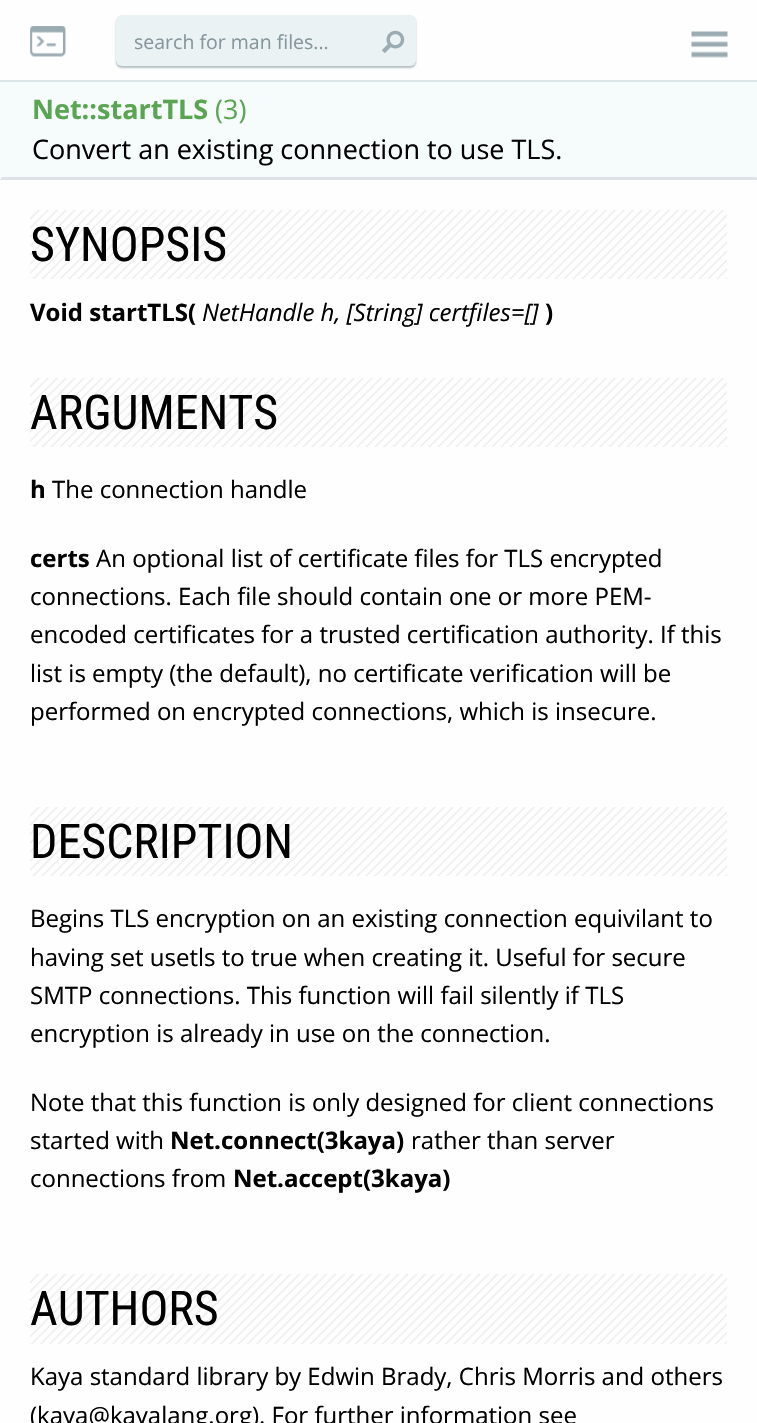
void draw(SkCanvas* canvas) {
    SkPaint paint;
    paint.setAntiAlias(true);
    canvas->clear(0xFFFEFEFE);
    paint.setColor(0xFFDCE5E7);
    canvas->drawRect(SkRect::MakeXYWH(0, 80, 757, 2), paint);
    canvas->drawImageRect(SkImages::DeferredFromEncodedData(SkData::MakeFromFileName("img1.png")), SkRect::MakeXYWH(30, 26, 36, 31), SkSamplingOptions());
    paint.setColor(0x4D062F37);
    paint.setMaskFilter(SkMaskFilter::MakeBlur(kNormal_SkBlurStyle, 1));
    canvas->drawRoundRect(SkRect::MakeXYWH(116, 17, 300, 51), 6, 6, paint);
    paint.setMaskFilter(nullptr);
    paint.setColor(0xFFEAF2F4);
    canvas->drawRoundRect(SkRect::MakeXYWH(116, 15, 300, 51), 6, 6, paint);
    SkFont font1(fontMgr->matchFamilyStyle("Open Sans", SkFontStyle::Normal()), 19.5f);
    font1.setSubpixel(true);
    paint.setColor(0xFF86969D);
    canvas->drawString("search for man files...", 134, 49, font1, paint);
    canvas->drawImageRect(SkImages::DeferredFromEncodedData(SkData::MakeFromFileName("img2.png")), SkRect::MakeXYWH(382, 30, 23, 23), SkSamplingOptions());
    canvas->drawImageRect(SkImages::DeferredFromEncodedData(SkData::MakeFromFileName("img3.png")), SkRect::MakeXYWH(691, 31, 37, 27), SkSamplingOptions());
    paint.setColor(0xFFF6FBFC);
    canvas->drawRect(SkRect::MakeXYWH(0, 82, 757, 98), paint);
    paint.setColor(0xFFDFE3E9);
    canvas->drawPath(SkPathBuilder().moveTo(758, 180).lineTo(0, 180).lineTo(2, 177).lineTo(756, 177).close().detach(), paint);
    SkFont font2(fontMgr->matchFamilyStyle("Open Sans", SkFontStyle::Bold()), 27);
    font2.setSubpixel(true);
    paint.setColor(0xFF59A552);
    canvas->drawString("Net::startTLS", 32, 119, font2, paint);
    SkFont font3(fontMgr->matchFamilyStyle("Open Sans", SkFontStyle::Normal()), 27);
    font3.setSubpixel(true);
    canvas->drawString("(3)", 215, 119, font3, paint);
    paint.setColor(0xFF000000);
    canvas->drawString("Convert an existing connection to use TLS.", 32, 159, font3, paint);
    canvas->drawImageRect(SkImages::DeferredFromEncodedData(SkData::MakeFromFileName("img4.png")), SkRect::MakeXYWH(30, 210, 697, 69), SkSamplingOptions());
    SkFont font4(fontMgr->matchFamilyStyle("Roboto Condensed", SkFontStyle::Normal()), 48);
    font4.setSubpixel(true);
    canvas->drawString("SYNOPSIS", 30, 261, font4, paint);
    SkFont font5(fontMgr->matchFamilyStyle("Open Sans", SkFontStyle::Bold()), 24);
    font5.setSubpixel(true);
    canvas->drawString("Void startTLS(", 30, 321, font5, paint);
    SkFont font6(fontMgr->matchFamilyStyle("Open Sans", SkFontStyle::Italic()), 24);
    font6.setSubpixel(true);
    canvas->drawString("NetHandle h, [String] certfiles=[]", 202, 321, font6, paint);
    canvas->drawString(")", 545, 321, font5, paint);
    canvas->drawImageRect(SkImages::DeferredFromEncodedData(SkData::MakeFromFileName("img4.png")), SkRect::MakeXYWH(30, 378, 697, 69), SkSamplingOptions());
    canvas->drawString("ARGUMENTS", 30, 429, font4, paint);
    canvas->drawString("h", 30, 498, font5, paint);
    SkFont font7(fontMgr->matchFamilyStyle("Open Sans", SkFontStyle::Normal()), 24);
    font7.setSubpixel(true);
    canvas->drawString("The connection handle", 52, 498, font7, paint);
    canvas->drawString("certs", 30, 567, font5, paint);
    canvas->drawString("An optional list of certificate files for TLS encrypted", 96, 567, font7, paint);
    canvas->drawString("connections. Each file should contain one or more PEM-", 30, 605, font7, paint);
    canvas->drawString("encoded certificates for a trusted certification authority. If this", 30, 643, font7, paint);
    canvas->drawString("list is empty (the default), no certificate verification will be", 30, 682, font7, paint);
    canvas->drawString("performed on encrypted connections, which is insecure.", 30, 720, font7, paint);
    canvas->drawImageRect(SkImages::DeferredFromEncodedData(SkData::MakeFromFileName("img4.png")), SkRect::MakeXYWH(30, 807, 697, 69), SkSamplingOptions());
    canvas->drawString("DESCRIPTION", 30, 858, font4, paint);
    canvas->drawString("Begins TLS encryption on an existing connection equivilant to", 30, 927, font7, paint);
    canvas->drawString("having set usetls to true when creating it. Useful for secure", 30, 966, font7, paint);
    canvas->drawString("SMTP connections. This function will fail silently if TLS", 30, 1004, font7, paint);
    canvas->drawString("encryption is already in use on the connection.", 30, 1042, font7, paint);
    canvas->drawString("Note that this function is only designed for client connections", 30, 1111, font7, paint);
    canvas->drawString("started with", 30, 1149, font7, paint);
    canvas->drawString("Net.connect(3kaya)", 170, 1149, font5, paint);
    canvas->drawString("rather than server", 411, 1149, font7, paint);
    canvas->drawString("connections from", 30, 1187, font7, paint);
    canvas->drawString("Net.accept(3kaya)", 233, 1187, font5, paint);
    canvas->drawImageRect(SkImages::DeferredFromEncodedData(SkData::MakeFromFileName("img5.png")), SkRect::MakeXYWH(30, 1274, 697, 70), SkSamplingOptions());
    canvas->drawString("AUTHORS", 30, 1325, font4, paint);
    canvas->drawString("Kaya standard library by Edwin Brady, Chris Morris and others", 30, 1385, font7, paint);
    canvas->drawString("(kaya@kayalang.org). For further information see", 30, 1424, font7, paint);
}
